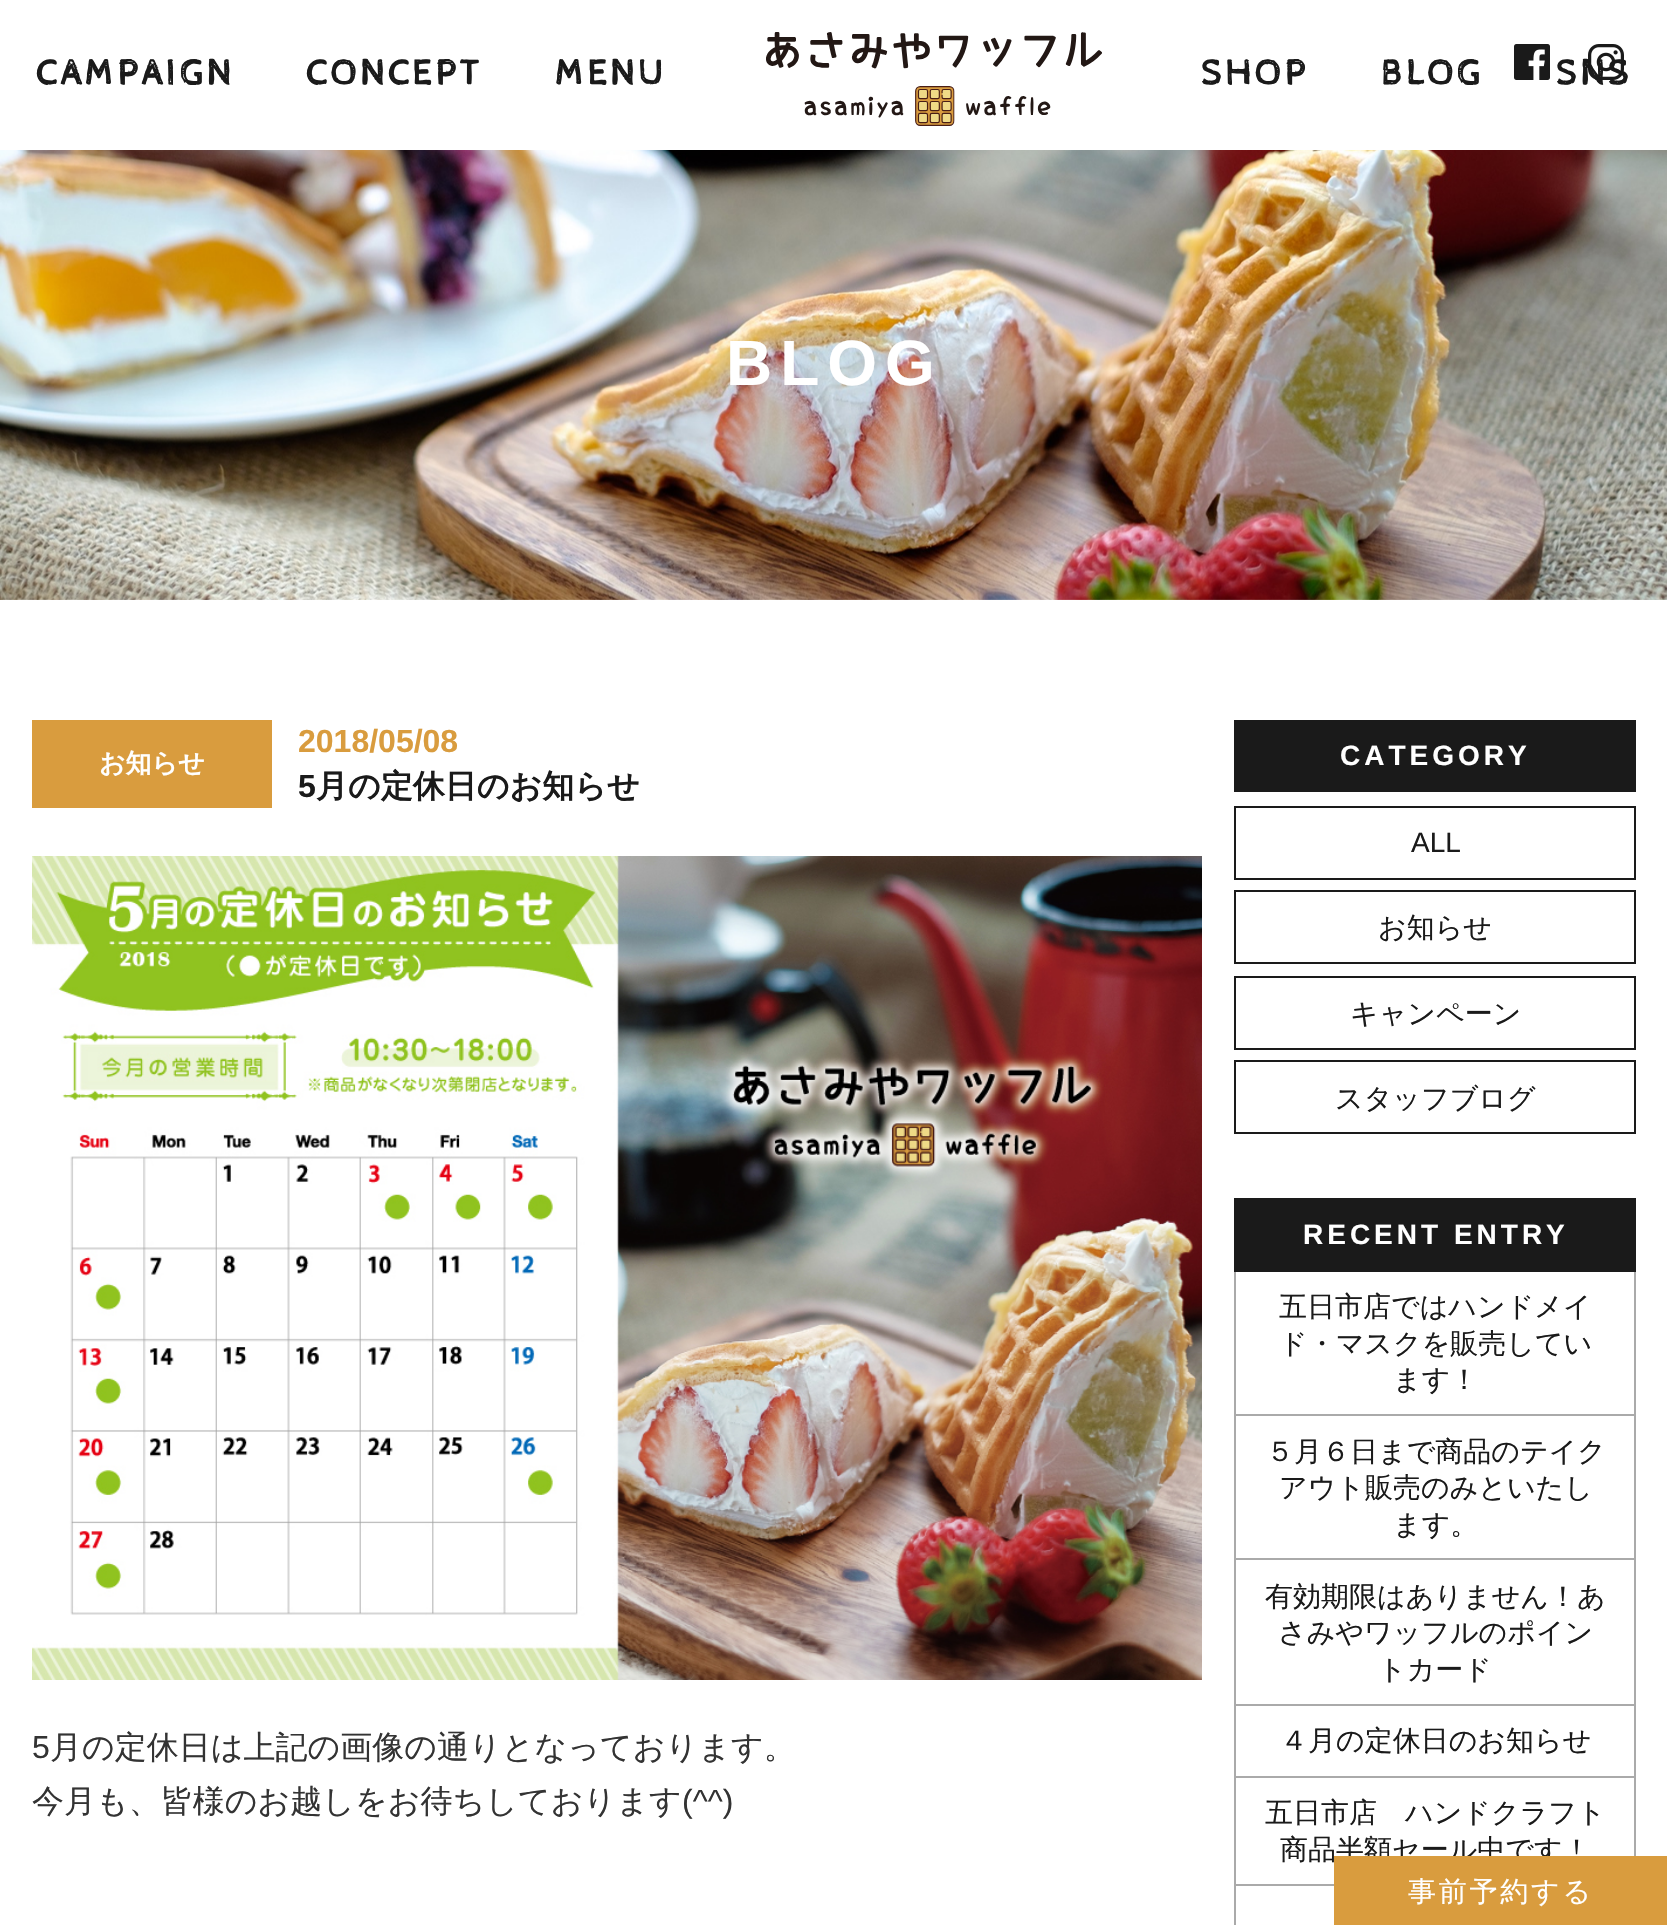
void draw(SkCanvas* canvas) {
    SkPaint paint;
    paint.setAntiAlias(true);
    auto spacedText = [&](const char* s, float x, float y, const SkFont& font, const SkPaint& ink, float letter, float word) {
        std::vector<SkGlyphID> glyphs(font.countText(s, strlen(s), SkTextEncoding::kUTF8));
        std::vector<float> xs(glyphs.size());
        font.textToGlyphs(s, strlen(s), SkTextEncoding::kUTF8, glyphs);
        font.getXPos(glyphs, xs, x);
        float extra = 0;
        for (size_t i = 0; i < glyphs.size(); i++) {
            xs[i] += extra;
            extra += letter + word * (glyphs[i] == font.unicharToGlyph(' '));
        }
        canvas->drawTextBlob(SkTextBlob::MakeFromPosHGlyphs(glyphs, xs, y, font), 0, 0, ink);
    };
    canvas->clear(0xFFFFFFFF);
    canvas->drawImageRect(SkImages::DeferredFromEncodedData(SkData::MakeFromFileName("img1.png")), SkRect::MakeXYWH(1514, 44, 36, 36), SkSamplingOptions());
    SkFont font1(fontMgr->matchFamilyStyle("Cabin Sketch", SkFontStyle::Bold()), 36);
    font1.setSubpixel(true);
    paint.setColor(0xFF1A1A1A);
    spacedText("SNS", 1556, 84, font1, paint, 4, 0);
    canvas->drawImageRect(SkImages::DeferredFromEncodedData(SkData::MakeFromFileName("img2.png")), SkRect::MakeXYWH(1588, 44, 36, 36), SkSamplingOptions());
    spacedText("CAMPAIGN", 36, 84, font1, paint, 4, 0);
    spacedText("CONCEPT", 306, 84, font1, paint, 4, 0);
    spacedText("MENU", 555, 84, font1, paint, 4, 0);
    canvas->drawImageRect(SkImages::DeferredFromEncodedData(SkData::MakeFromFileName("img3.png")), SkRect::MakeXYWH(766, 32, 336, 94), SkSamplingOptions());
    spacedText("SHOP", 1201, 84, font1, paint, 4, 0);
    spacedText("BLOG", 1381, 84, font1, paint, 4, 0);
    canvas->drawImageRect(SkImages::DeferredFromEncodedData(SkData::MakeFromFileName("img4.png")), SkRect::MakeXYWH(0, 150, 1667, 450), SkSamplingOptions());
    SkFont font2(fontMgr->matchFamilyStyle("Liberation Sans", SkFontStyle::Bold()), 64);
    font2.setSubpixel(true);
    paint.setColor(0xFFFFFFFF);
    spacedText("BLOG", 726, 385, font2, paint, 8, 0);
    paint.setColor(0xFFD99C3E);
    canvas->drawRect(SkRect::MakeXYWH(32, 720, 240, 88), paint);
    SkFont font3(fontMgr->matchFamilyStyle("WenQuanYi Zen Hei", SkFontStyle::Bold()), 26);
    font3.setSubpixel(true);
    paint.setColor(0xFFFFFFFF);
    canvas->drawString("お知らせ", 99, 772, font3, paint);
    SkFont font4(fontMgr->matchFamilyStyle("Liberation Sans", SkFontStyle::Bold()), 32);
    font4.setSubpixel(true);
    paint.setColor(0xFFD99C3E);
    canvas->drawString("2018/05/08", 298, 752, font4, paint);
    paint.setColor(0xFF1A1A1A);
    canvas->drawString("5", 298, 797, font4, paint);
    SkFont font5(fontMgr->matchFamilyStyle("WenQuanYi Zen Hei", SkFontStyle::Bold()), 32);
    font5.setSubpixel(true);
    canvas->drawString("月の定休日のお知らせ", 316, 797, font5, paint);
    canvas->drawImageRect(SkImages::DeferredFromEncodedData(SkData::MakeFromFileName("img5.png")), SkRect::MakeXYWH(32, 856, 1170, 824), SkSamplingOptions());
    SkFont font6(fontMgr->matchFamilyStyle("Liberation Sans", SkFontStyle::Normal()), 32);
    font6.setSubpixel(true);
    paint.setColor(0xFF333333);
    canvas->drawString("5", 32, 1758, font6, paint);
    SkFont font7(fontMgr->matchFamilyStyle("WenQuanYi Zen Hei", SkFontStyle(500, SkFontStyle::kNormal_Width, SkFontStyle::kUpright_Slant)), 32);
    font7.setSubpixel(true);
    canvas->drawString("月の定休日は上記の画像の通りとなっております。", 50, 1758, font7, paint);
    canvas->drawString("今月も、皆様のお越しをお待ちしております", 32, 1812, font7, paint);
    canvas->drawString("(^^)", 682, 1812, font6, paint);
    paint.setColor(0xFF1A1A1A);
    canvas->drawRect(SkRect::MakeXYWH(1234, 720, 402, 72), paint);
    SkFont font8(fontMgr->matchFamilyStyle("Liberation Sans", SkFontStyle::Bold()), 28);
    font8.setSubpixel(true);
    paint.setColor(0xFFFFFFFF);
    spacedText("CATEGORY", 1340, 765, font8, paint, 4, 0);
    paint.setStyle(SkPaint::kStroke_Style);
    paint.setStrokeWidth(2);
    paint.setColor(0xFF1A1A1A);
    canvas->drawRect(SkRect::MakeXYWH(1235, 807, 400, 72), paint);
    SkFont font9(fontMgr->matchFamilyStyle("Liberation Sans", SkFontStyle::Normal()), 28);
    font9.setSubpixel(true);
    paint.setStyle(SkPaint::kFill_Style);
    canvas->drawString("ALL", 1411, 852, font9, paint);
    paint.setStyle(SkPaint::kStroke_Style);
    canvas->drawRect(SkRect::MakeXYWH(1235, 891, 400, 72), paint);
    SkFont font10(fontMgr->matchFamilyStyle("WenQuanYi Zen Hei", SkFontStyle(500, SkFontStyle::kNormal_Width, SkFontStyle::kUpright_Slant)), 28);
    font10.setSubpixel(true);
    paint.setStyle(SkPaint::kFill_Style);
    canvas->drawString("お知らせ", 1378, 937, font10, paint);
    paint.setStyle(SkPaint::kStroke_Style);
    canvas->drawRect(SkRect::MakeXYWH(1235, 977, 400, 72), paint);
    paint.setStyle(SkPaint::kFill_Style);
    canvas->drawString("キャンペーン", 1350, 1023, font10, paint);
    paint.setStyle(SkPaint::kStroke_Style);
    canvas->drawRect(SkRect::MakeXYWH(1235, 1061, 400, 72), paint);
    paint.setStyle(SkPaint::kFill_Style);
    canvas->drawString("スタッフブログ", 1335, 1108, font10, paint);
    canvas->drawRect(SkRect::MakeXYWH(1234, 1198, 402, 74), paint);
    paint.setColor(0xFFFFFFFF);
    spacedText("RECENT ENTRY", 1303, 1244, font8, paint, 4, 0);
    paint.setColor(0xFFAAAAAA);
    canvas->drawRect(SkRect::MakeXYWH(1634, 1272, 2, 584), paint);
    canvas->drawRect(SkRect::MakeXYWH(1234, 1414, 402, 2), paint);
    canvas->drawRect(SkRect::MakeXYWH(1234, 1272, 2, 144), paint);
    paint.setColor(0xFF1A1A1A);
    canvas->drawString("五日市店ではハンドメイ", 1279, 1316, font10, paint);
    canvas->drawString("ド・マスクを販売してい", 1279, 1353, font10, paint);
    canvas->drawString("ます！", 1393, 1389, font10, paint);
    paint.setColor(0xFFAAAAAA);
    canvas->drawRect(SkRect::MakeXYWH(1234, 1558, 402, 2), paint);
    canvas->drawRect(SkRect::MakeXYWH(1234, 1416, 2, 144), paint);
    paint.setColor(0xFF1A1A1A);
    canvas->drawString("５月６日まで商品のテイク", 1266, 1461, font10, paint);
    canvas->drawString("アウト販売のみといたし", 1279, 1497, font10, paint);
    canvas->drawString("ます。", 1393, 1534, font10, paint);
    paint.setColor(0xFFAAAAAA);
    canvas->drawRect(SkRect::MakeXYWH(1234, 1704, 402, 2), paint);
    canvas->drawRect(SkRect::MakeXYWH(1234, 1560, 2, 146), paint);
    paint.setColor(0xFF1A1A1A);
    canvas->drawString("有効期限はありません！あ", 1265, 1606, font10, paint);
    canvas->drawString("さみやワッフルのポイン", 1278, 1642, font10, paint);
    canvas->drawString("トカード", 1378, 1679, font10, paint);
    paint.setColor(0xFFAAAAAA);
    canvas->drawRect(SkRect::MakeXYWH(1234, 1776, 402, 2), paint);
    canvas->drawRect(SkRect::MakeXYWH(1234, 1706, 2, 72), paint);
    paint.setColor(0xFF1A1A1A);
    canvas->drawString("４月の定休日のお知らせ", 1280, 1750, font10, paint);
    paint.setColor(0xFFAAAAAA);
    canvas->drawRect(SkRect::MakeXYWH(1234, 1884, 100, 2), paint);
    canvas->drawRect(SkRect::MakeXYWH(1234, 1778, 2, 147), paint);
    paint.setColor(0xFF1A1A1A);
    canvas->drawString("五日市店　ハンドクラフト", 1265, 1822, font10, paint);
    canvas->drawString("商品半額セール中です！", 1280, 1859, font10, paint);
    paint.setColor(0xFFD99C3E);
    canvas->drawRect(SkRect::MakeXYWH(1334, 1856, 333, 69), paint);
    paint.setColor(0xFFFFFFFF);
    spacedText("事前予約する", 1408, 1901, font10, paint, 2.75f, 0);
}
